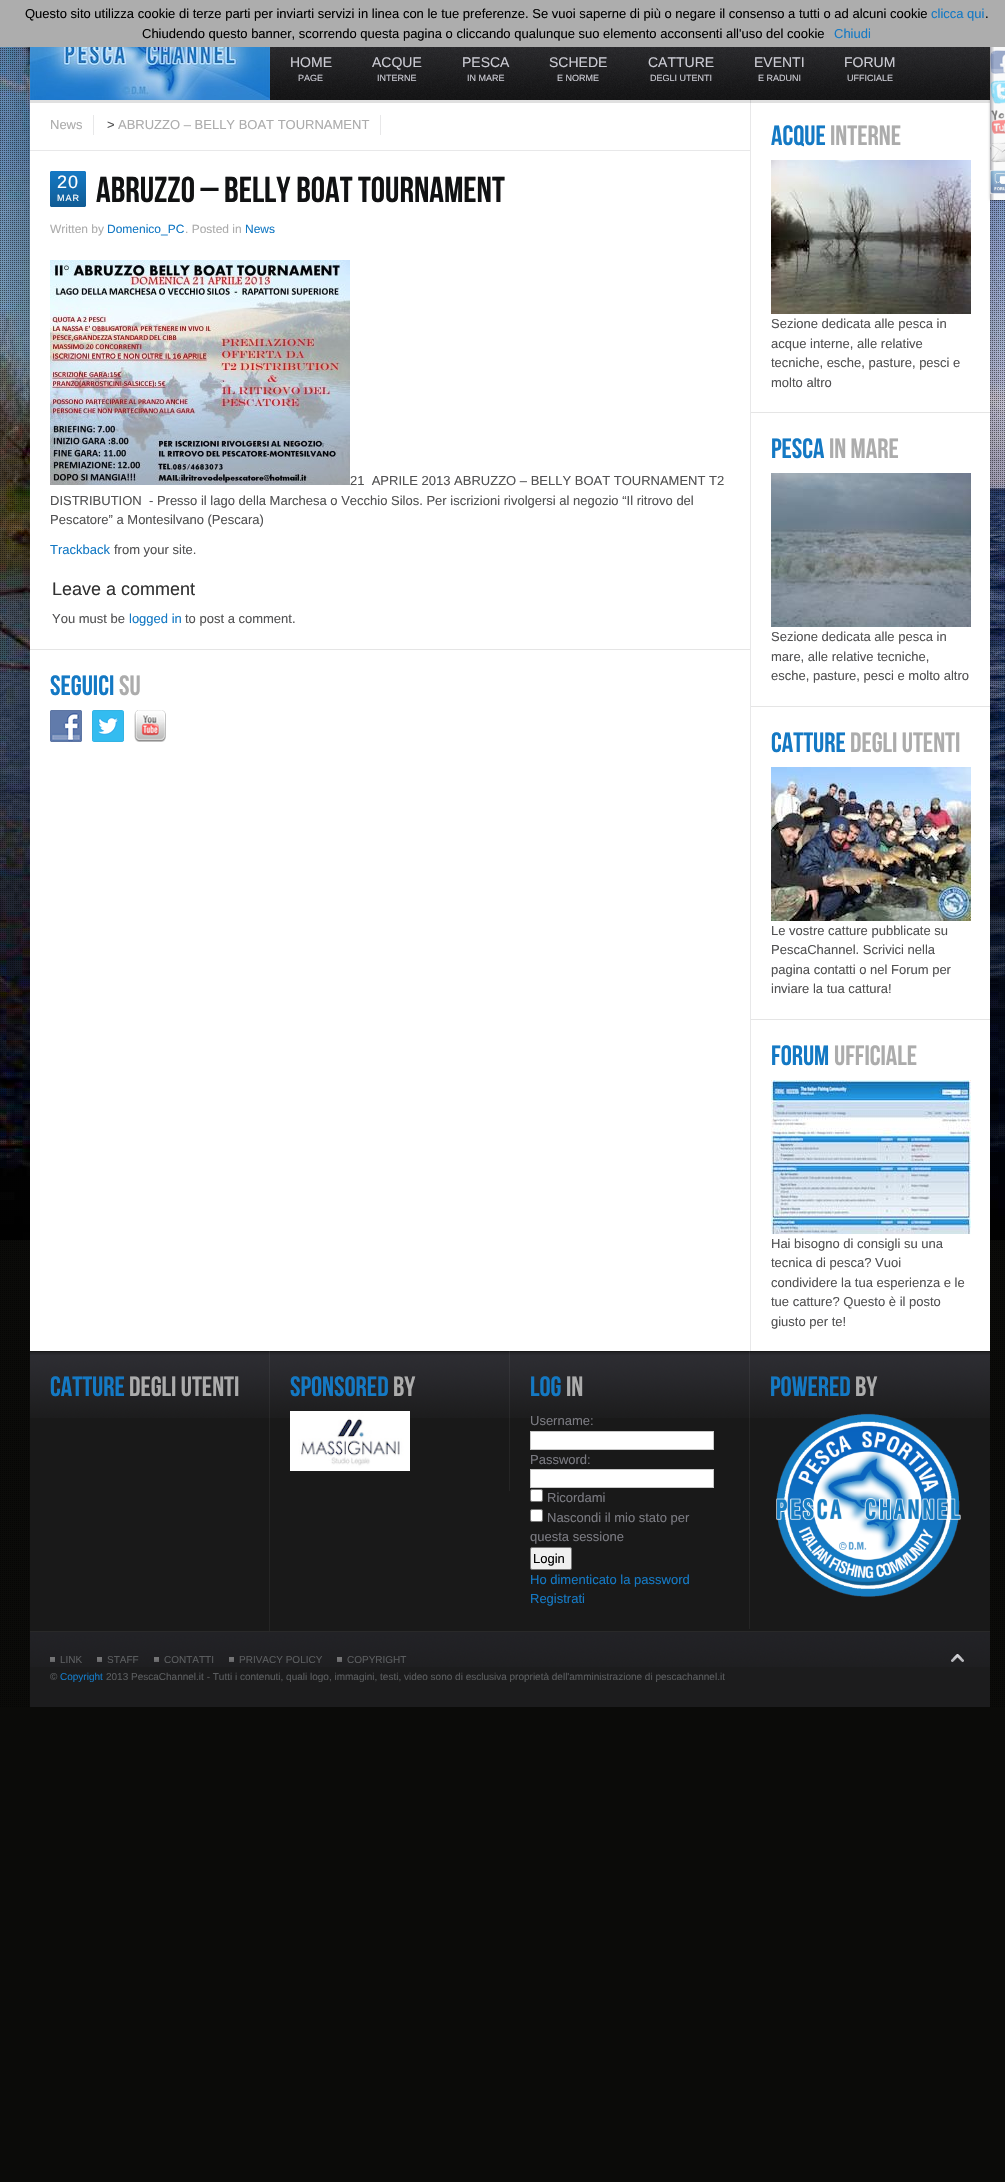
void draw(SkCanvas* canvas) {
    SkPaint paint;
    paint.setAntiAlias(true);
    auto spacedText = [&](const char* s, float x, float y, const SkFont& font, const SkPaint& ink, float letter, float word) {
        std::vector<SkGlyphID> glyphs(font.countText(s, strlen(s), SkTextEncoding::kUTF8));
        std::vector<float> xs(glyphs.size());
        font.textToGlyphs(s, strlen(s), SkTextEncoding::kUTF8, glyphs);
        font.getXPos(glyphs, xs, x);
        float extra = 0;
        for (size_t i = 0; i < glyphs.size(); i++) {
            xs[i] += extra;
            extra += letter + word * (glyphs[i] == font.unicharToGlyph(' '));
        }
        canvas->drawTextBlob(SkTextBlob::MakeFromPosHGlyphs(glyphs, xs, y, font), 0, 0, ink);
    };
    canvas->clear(0xFF0B0B09);
    canvas->drawImageRect(SkImages::DeferredFromEncodedData(SkData::MakeFromFileName("img1.png")), SkRect::MakeXYWH(0, 47, 1005, 1193), SkSamplingOptions());
    canvas->drawImageRect(SkImages::DeferredFromEncodedData(SkData::MakeFromFileName("img2.png")), SkRect::MakeXYWH(0, 48, 1005, 1659), SkSamplingOptions());
    canvas->drawImageRect(SkImages::DeferredFromEncodedData(SkData::MakeFromFileName("img4.png")), SkRect::MakeXYWH(990, 200, 15, 838), SkSamplingOptions());
    paint.setColor(0xFF1C1C1D);
    canvas->drawRect(SkRect::MakeXYWH(30, 47, 960, 1660), paint);
    paint.setColor(0xFFFFFFFF);
    canvas->drawRect(SkRect::MakeXYWH(30, 100, 960, 1251), paint);
    paint.setColor(0xFFE8E8E9);
    canvas->drawRect(SkRect::MakeXYWH(750, 100, 1, 1251), paint);
    paint.setColor(0x1F000000);
    canvas->drawRect(SkRect::MakeXYWH(30, 100, 960, 3), paint);
    paint.setColor(0x80000000);
    paint.setMaskFilter(SkMaskFilter::MakeBlur(kNormal_SkBlurStyle, 1.5f));
    canvas->drawRect(SkRect::MakeXYWH(991, 40, 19, 160), paint);
    paint.setMaskFilter(nullptr);
    paint.setColor(0xFFADADAD);
    canvas->drawRect(SkRect::MakeXYWH(0, 0, 1005, 47), paint);
    SkFont font1(fontMgr->matchFamilyStyle("Liberation Sans", SkFontStyle::Normal()), 13);
    font1.setSubpixel(true);
    paint.setColor(0xFF000000);
    canvas->drawString("Questo sito utilizza cookie di terze parti per inviarti servizi in linea con le tue preferenze. Se vuoi saperne di più o negare il consenso a tutti o ad alcuni cookie", 25, 18, font1, paint);
    paint.setColor(0xFF1479C4);
    canvas->drawString("clicca qui", 931, 18, font1, paint);
    paint.setColor(0xFF000000);
    canvas->drawString(".", 985, 18, font1, paint);
    canvas->drawString("Chiudendo questo banner, scorrendo questa pagina o cliccando qualunque suo elemento acconsenti all'uso del cookie", 142, 38, font1, paint);
    paint.setColor(0xFF1479C4);
    canvas->drawString("Chiudi", 834, 38, font1, paint);
    canvas->drawImageRect(SkImages::DeferredFromEncodedData(SkData::MakeFromFileName("img3.png")), SkRect::MakeXYWH(9, 47, 21, 1091), SkSamplingOptions());
    canvas->drawImageRect(SkImages::DeferredFromEncodedData(SkData::MakeFromFileName("img5.png")), SkRect::MakeXYWH(30, 47, 240, 53), SkSamplingOptions());
    canvas->drawImageRect(SkImages::DeferredFromEncodedData(SkData::MakeFromFileName("img6.png")), SkRect::MakeXYWH(270, 47, 720, 53), SkSamplingOptions());
    SkFont font2(fontMgr->matchFamilyStyle("Liberation Sans", SkFontStyle::Normal()), 14);
    font2.setSubpixel(true);
    paint.setColor(0xFFCBCBD3);
    canvas->drawString("HOME", 290, 67, font2, paint);
    SkFont font3(fontMgr->matchFamilyStyle("Liberation Sans", SkFontStyle::Normal()), 9);
    font3.setSubpixel(true);
    canvas->drawString("PAGE", 298, 81, font3, paint);
    canvas->drawString("ACQUE", 372, 67, font2, paint);
    canvas->drawString("INTERNE", 377, 81, font3, paint);
    canvas->drawString("PESCA", 462, 67, font2, paint);
    canvas->drawString("IN MARE", 467, 81, font3, paint);
    canvas->drawString("SCHEDE", 549, 67, font2, paint);
    canvas->drawString("E NORME", 557, 81, font3, paint);
    canvas->drawString("CATTURE", 648, 67, font2, paint);
    canvas->drawString("DEGLI UTENTI", 650, 81, font3, paint);
    canvas->drawString("EVENTI", 754, 67, font2, paint);
    canvas->drawString("E RADUNI", 758, 81, font3, paint);
    canvas->drawString("FORUM", 844, 67, font2, paint);
    canvas->drawString("UFFICIALE", 847, 81, font3, paint);
    {
        const SkColor colors[] = {0xFFA7A7AD, 0xFFFAFAFA};
        const float stops[] = {0, 0.15f};
        const SkPoint ends[] = {{990, 120}, {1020, 120}};
        paint.setShader(SkGradientShader::MakeLinear(ends, colors, stops, 2, SkTileMode::kClamp));
        paint.setAlpha(255);
    }
    canvas->drawRect(SkRect::MakeXYWH(990, 47, 15, 153), paint);
    canvas->drawImageRect(SkImages::DeferredFromEncodedData(SkData::MakeFromFileName("img7.png")), SkRect::MakeXYWH(990, 50, 15, 24), SkSamplingOptions());
    canvas->drawImageRect(SkImages::DeferredFromEncodedData(SkData::MakeFromFileName("img8.png")), SkRect::MakeXYWH(990, 80, 15, 24), SkSamplingOptions());
    canvas->drawImageRect(SkImages::DeferredFromEncodedData(SkData::MakeFromFileName("img9.png")), SkRect::MakeXYWH(991, 110, 14, 24), SkSamplingOptions());
    canvas->drawImageRect(SkImages::DeferredFromEncodedData(SkData::MakeFromFileName("img10.png")), SkRect::MakeXYWH(990, 142, 15, 21), SkSamplingOptions());
    canvas->drawImageRect(SkImages::DeferredFromEncodedData(SkData::MakeFromFileName("img11.png")), SkRect::MakeXYWH(990, 170, 15, 24), SkSamplingOptions());
    paint.setShader(nullptr);
    paint.setColor(0xFFE8E8E9);
    canvas->drawRect(SkRect::MakeXYWH(30, 150, 720, 1), paint);
    canvas->drawRect(SkRect::MakeXYWH(93, 115, 1, 20), paint);
    paint.setColor(0xFFACACAC);
    canvas->drawString("News", 50, 129, font1, paint);
    paint.setColor(0xFF525253);
    canvas->drawString(">", 107, 129, font1, paint);
    paint.setColor(0xFFE8E8E9);
    canvas->drawRect(SkRect::MakeXYWH(380, 115, 1, 20), paint);
    paint.setColor(0xFFACACAC);
    canvas->drawString("ABRUZZO – BELLY BOAT TOURNAMENT", 118, 129, font1, paint);
    canvas->drawImageRect(SkImages::DeferredFromEncodedData(SkData::MakeFromFileName("img12.png")), SkRect::MakeXYWH(50, 171, 36, 36), SkSamplingOptions());
    SkFont font4(fontMgr->matchFamilyStyle("Liberation Sans", SkFontStyle::Normal()), 18);
    font4.setSubpixel(true);
    paint.setColor(0xFFFFFFFF);
    spacedText("20", 57, 188, font4, paint, 1, 0);
    spacedText("MAR", 57, 201, font3, paint, 1, 0);
    SkFont font5(fontMgr->matchFamilyStyle("Bebas Neue", SkFontStyle::Normal()), 36);
    font5.setSubpixel(true);
    paint.setColor(0xFF111213);
    canvas->drawString("ABRUZZO – BELLY BOAT TOURNAMENT", 96, 202, font5, paint);
    SkFont font6(fontMgr->matchFamilyStyle("Liberation Sans", SkFontStyle::Normal()), 12);
    font6.setSubpixel(true);
    paint.setColor(0xFFACACAC);
    canvas->drawString("Written by", 50, 233, font6, paint);
    paint.setColor(0xFF1479C4);
    canvas->drawString("Domenico_PC", 107, 233, font6, paint);
    paint.setColor(0xFFACACAC);
    canvas->drawString(". Posted in", 185, 233, font6, paint);
    paint.setColor(0xFF1479C4);
    canvas->drawString("News", 245, 233, font6, paint);
    canvas->drawImageRect(SkImages::DeferredFromEncodedData(SkData::MakeFromFileName("img13.png")), SkRect::MakeXYWH(50, 260, 300, 225), SkSamplingOptions());
    paint.setColor(0xFF525253);
    canvas->drawString("21  APRILE 2013 ABRUZZO – BELLY BOAT TOURNAMENT T2", 350, 485, font1, paint);
    canvas->drawString("DISTRIBUTION  - Presso il lago della Marchesa o Vecchio Silos. Per iscrizioni rivolgersi al negozio “Il ritrovo del", 50, 505, font1, paint);
    canvas->drawString("Pescatore” a Montesilvano (Pescara)", 50, 524, font1, paint);
    paint.setColor(0xFF1479C4);
    canvas->drawString("Trackback", 50, 554, font1, paint);
    paint.setColor(0xFF525253);
    canvas->drawString("from your site.", 114, 554, font1, paint);
    paint.setColor(0xFF323232);
    canvas->drawString("Leave a comment", 52, 595, font4, paint);
    paint.setColor(0xFF525253);
    canvas->drawString("You must be", 52, 623, font1, paint);
    paint.setColor(0xFF1479C4);
    canvas->drawString("logged in", 129, 623, font1, paint);
    paint.setColor(0xFF525253);
    canvas->drawString("to post a comment.", 185, 623, font1, paint);
    paint.setColor(0xFFE5E5E5);
    canvas->drawRect(SkRect::MakeXYWH(30, 649, 720, 1), paint);
    SkFont font7(fontMgr->matchFamilyStyle("Bebas Neue", SkFontStyle::Normal()), 28);
    font7.setSubpixel(true);
    paint.setColor(0xFF1479C4);
    canvas->drawString("SEGUICI", 50, 695, font7, paint);
    paint.setColor(0xFFACACAC);
    canvas->drawString("SU", 119, 695, font7, paint);
    canvas->drawImageRect(SkImages::DeferredFromEncodedData(SkData::MakeFromFileName("img14.png")), SkRect::MakeXYWH(50, 710, 32, 32), SkSamplingOptions());
    canvas->drawImageRect(SkImages::DeferredFromEncodedData(SkData::MakeFromFileName("img15.png")), SkRect::MakeXYWH(92, 710, 32, 32), SkSamplingOptions());
    canvas->drawImageRect(SkImages::DeferredFromEncodedData(SkData::MakeFromFileName("img16.png")), SkRect::MakeXYWH(134, 710, 32, 32), SkSamplingOptions());
    paint.setColor(0xFFE5E5E5);
    canvas->drawRect(SkRect::MakeXYWH(751, 412, 239, 1), paint);
    paint.setColor(0xFF1479C4);
    canvas->drawString("ACQUE", 771, 145, font7, paint);
    paint.setColor(0xFFACACAC);
    canvas->drawString("INTERNE", 830, 145, font7, paint);
    canvas->drawImageRect(SkImages::DeferredFromEncodedData(SkData::MakeFromFileName("img17.png")), SkRect::MakeXYWH(771, 160, 200, 154), SkSamplingOptions());
    paint.setColor(0xFF525253);
    canvas->drawString("Sezione dedicata alle pesca in", 771, 328, font1, paint);
    canvas->drawString("acque interne, alle relative", 771, 348, font1, paint);
    canvas->drawString("tecniche, esche, pasture, pesci e", 771, 367, font1, paint);
    canvas->drawString("molto altro", 771, 387, font1, paint);
    paint.setColor(0xFFE5E5E5);
    canvas->drawRect(SkRect::MakeXYWH(751, 706, 239, 1), paint);
    paint.setColor(0xFF1479C4);
    canvas->drawString("PESCA", 771, 458, font7, paint);
    paint.setColor(0xFFACACAC);
    canvas->drawString("IN MARE", 829, 458, font7, paint);
    canvas->drawImageRect(SkImages::DeferredFromEncodedData(SkData::MakeFromFileName("img18.png")), SkRect::MakeXYWH(771, 473, 200, 154), SkSamplingOptions());
    paint.setColor(0xFF525253);
    canvas->drawString("Sezione dedicata alle pesca in", 771, 641, font1, paint);
    canvas->drawString("mare, alle relative tecniche,", 771, 661, font1, paint);
    canvas->drawString("esche, pasture, pesci e molto altro", 771, 680, font1, paint);
    paint.setColor(0xFFE5E5E5);
    canvas->drawRect(SkRect::MakeXYWH(751, 1019, 239, 1), paint);
    paint.setColor(0xFF1479C4);
    canvas->drawString("CATTURE", 771, 752, font7, paint);
    paint.setColor(0xFFACACAC);
    canvas->drawString("DEGLI UTENTI", 850, 752, font7, paint);
    canvas->drawImageRect(SkImages::DeferredFromEncodedData(SkData::MakeFromFileName("img19.png")), SkRect::MakeXYWH(771, 767, 200, 154), SkSamplingOptions());
    paint.setColor(0xFF525253);
    canvas->drawString("Le vostre catture pubblicate su", 771, 935, font1, paint);
    canvas->drawString("PescaChannel. Scrivici nella", 771, 954, font1, paint);
    canvas->drawString("pagina contatti o nel Forum per", 771, 974, font1, paint);
    canvas->drawString("inviare la tua cattura!", 771, 993, font1, paint);
    paint.setColor(0xFF1479C4);
    canvas->drawString("FORUM", 771, 1065, font7, paint);
    paint.setColor(0xFFACACAC);
    canvas->drawString("UFFICIALE", 834, 1065, font7, paint);
    canvas->drawImageRect(SkImages::DeferredFromEncodedData(SkData::MakeFromFileName("img20.png")), SkRect::MakeXYWH(771, 1080, 200, 154), SkSamplingOptions());
    paint.setColor(0xFF525253);
    canvas->drawString("Hai bisogno di consigli su una", 771, 1248, font1, paint);
    canvas->drawString("tecnica di pesca? Vuoi", 771, 1267, font1, paint);
    canvas->drawString("condividere la tua esperienza e le", 771, 1287, font1, paint);
    canvas->drawString("tue catture? Questo è il posto", 771, 1306, font1, paint);
    canvas->drawString("giusto per te!", 771, 1326, font1, paint);
    paint.setColor(0xFF191919);
    canvas->drawRect(SkRect::MakeXYWH(30, 1351, 960, 280), paint);
    canvas->drawImageRect(SkImages::DeferredFromEncodedData(SkData::MakeFromFileName("img21.png")), SkRect::MakeXYWH(30, 1352, 960, 66), SkSamplingOptions());
    paint.setColor(0xFF292929);
    canvas->drawRect(SkRect::MakeXYWH(30, 1631, 960, 1), paint);
    paint.setColor(0x0DFFFFFF);
    canvas->drawRect(SkRect::MakeXYWH(269, 1351, 1, 280), paint);
    paint.setColor(0xFF1479C4);
    canvas->drawString("CATTURE", 50, 1396, font7, paint);
    paint.setColor(0xFFACACAC);
    canvas->drawString("DEGLI UTENTI", 129, 1396, font7, paint);
    paint.setColor(0x0DFFFFFF);
    canvas->drawRect(SkRect::MakeXYWH(509, 1351, 1, 140), paint);
    paint.setColor(0xFF1479C4);
    canvas->drawString("SPONSORED", 290, 1396, font7, paint);
    paint.setColor(0xFFACACAC);
    canvas->drawString("BY", 393, 1396, font7, paint);
    canvas->drawImageRect(SkImages::DeferredFromEncodedData(SkData::MakeFromFileName("img22.png")), SkRect::MakeXYWH(290, 1411, 120, 60), SkSamplingOptions());
    paint.setColor(0x0DFFFFFF);
    canvas->drawRect(SkRect::MakeXYWH(749, 1351, 1, 278), paint);
    paint.setColor(0xFF1479C4);
    canvas->drawString("LOG", 530, 1396, font7, paint);
    paint.setColor(0xFFACACAC);
    canvas->drawString("IN", 566, 1396, font7, paint);
    paint.setColor(0xFF7A7A81);
    canvas->drawString("Username:", 530, 1425, font1, paint);
    paint.setColor(0xFFFFFFFF);
    canvas->drawRect(SkRect::MakeXYWH(530.5f, 1431.5f, 183, 18), paint);
    paint.setStyle(SkPaint::kStroke_Style);
    paint.setStrokeWidth(1);
    paint.setColor(0xFFC8C8C8);
    canvas->drawRect(SkRect::MakeXYWH(530.5f, 1431.5f, 183, 18), paint);
    paint.setStyle(SkPaint::kFill_Style);
    paint.setColor(0xFF7A7A81);
    canvas->drawString("Password:", 530, 1464, font1, paint);
    paint.setColor(0xFFFFFFFF);
    canvas->drawRect(SkRect::MakeXYWH(530.5f, 1469.5f, 183, 18), paint);
    paint.setStyle(SkPaint::kStroke_Style);
    paint.setColor(0xFFC8C8C8);
    canvas->drawRect(SkRect::MakeXYWH(530.5f, 1469.5f, 183, 18), paint);
    paint.setStyle(SkPaint::kFill_Style);
    paint.setColor(0xFFFFFFFF);
    canvas->drawRoundRect(SkRect::MakeXYWH(530.5f, 1489.5f, 12, 12), 1.5f, 1.5f, paint);
    paint.setStyle(SkPaint::kStroke_Style);
    paint.setColor(0xFF767676);
    canvas->drawRoundRect(SkRect::MakeXYWH(530.5f, 1489.5f, 12, 12), 1.5f, 1.5f, paint);
    paint.setStyle(SkPaint::kFill_Style);
    paint.setColor(0xFF7A7A81);
    canvas->drawString("Ricordami", 547, 1502, font1, paint);
    paint.setColor(0xFFFFFFFF);
    canvas->drawRoundRect(SkRect::MakeXYWH(530.5f, 1509.5f, 12, 12), 1.5f, 1.5f, paint);
    paint.setStyle(SkPaint::kStroke_Style);
    paint.setColor(0xFF767676);
    canvas->drawRoundRect(SkRect::MakeXYWH(530.5f, 1509.5f, 12, 12), 1.5f, 1.5f, paint);
    paint.setStyle(SkPaint::kFill_Style);
    paint.setColor(0xFF7A7A81);
    canvas->drawString("Nascondi il mio stato per", 547, 1522, font1, paint);
    canvas->drawString("questa sessione", 530, 1541, font1, paint);
    paint.setColor(0xFFEFEFEF);
    canvas->drawRoundRect(SkRect::MakeXYWH(530.5f, 1547.5f, 41, 22), 1.5f, 1.5f, paint);
    paint.setStyle(SkPaint::kStroke_Style);
    paint.setColor(0xFF767676);
    canvas->drawRoundRect(SkRect::MakeXYWH(530.5f, 1547.5f, 41, 22), 1.5f, 1.5f, paint);
    paint.setStyle(SkPaint::kFill_Style);
    paint.setColor(0xFF000000);
    canvas->drawString("Login", 533, 1563, font1, paint);
    paint.setColor(0xFF1479C4);
    canvas->drawString("Ho dimenticato la password", 530, 1584, font1, paint);
    canvas->drawString("Registrati", 530, 1603, font1, paint);
    canvas->drawString("POWERED", 770, 1396, font7, paint);
    paint.setColor(0xFFACACAC);
    canvas->drawString("BY", 855, 1396, font7, paint);
    canvas->drawImageRect(SkImages::DeferredFromEncodedData(SkData::MakeFromFileName("img23.png")), SkRect::MakeXYWH(776, 1413, 185, 184), SkSamplingOptions());
    canvas->drawImageRect(SkImages::DeferredFromEncodedData(SkData::MakeFromFileName("img24.png")), SkRect::MakeXYWH(30, 1632, 960, 35), SkSamplingOptions());
    canvas->drawImageRect(SkImages::DeferredFromEncodedData(SkData::MakeFromFileName("img25.png")), SkRect::MakeXYWH(50, 1657, 5, 5), SkSamplingOptions());
    SkFont font8(fontMgr->matchFamilyStyle("Liberation Sans", SkFontStyle::Normal()), 10);
    font8.setSubpixel(true);
    paint.setColor(0xFF5A5C5E);
    canvas->drawString("LINK", 60, 1663, font8, paint);
    canvas->drawImageRect(SkImages::DeferredFromEncodedData(SkData::MakeFromFileName("img26.png")), SkRect::MakeXYWH(97, 1657, 5, 5), SkSamplingOptions());
    canvas->drawString("STAFF", 107, 1663, font8, paint);
    canvas->drawImageRect(SkImages::DeferredFromEncodedData(SkData::MakeFromFileName("img27.png")), SkRect::MakeXYWH(154, 1657, 5, 5), SkSamplingOptions());
    canvas->drawString("CONTATTI", 164, 1663, font8, paint);
    canvas->drawImageRect(SkImages::DeferredFromEncodedData(SkData::MakeFromFileName("img28.png")), SkRect::MakeXYWH(229, 1657, 5, 5), SkSamplingOptions());
    canvas->drawString("PRIVACY POLICY", 239, 1663, font8, paint);
    canvas->drawImageRect(SkImages::DeferredFromEncodedData(SkData::MakeFromFileName("img29.png")), SkRect::MakeXYWH(337, 1657, 5, 5), SkSamplingOptions());
    canvas->drawString("COPYRIGHT", 347, 1663, font8, paint);
    canvas->drawImageRect(SkImages::DeferredFromEncodedData(SkData::MakeFromFileName("img30.png")), SkRect::MakeXYWH(951, 1654, 13, 8), SkSamplingOptions());
    canvas->drawString("©", 50, 1680, font8, paint);
    paint.setColor(0xFF1479C4);
    canvas->drawString("Copyright", 60, 1680, font8, paint);
    paint.setColor(0xFF5A5C5E);
    canvas->drawString("2013 PescaChannel.it - Tutti i contenuti, quali logo, immagini, testi, video sono di esclusiva proprietà dell'amministrazione di pescachannel.it", 106, 1680, font8, paint);
}
